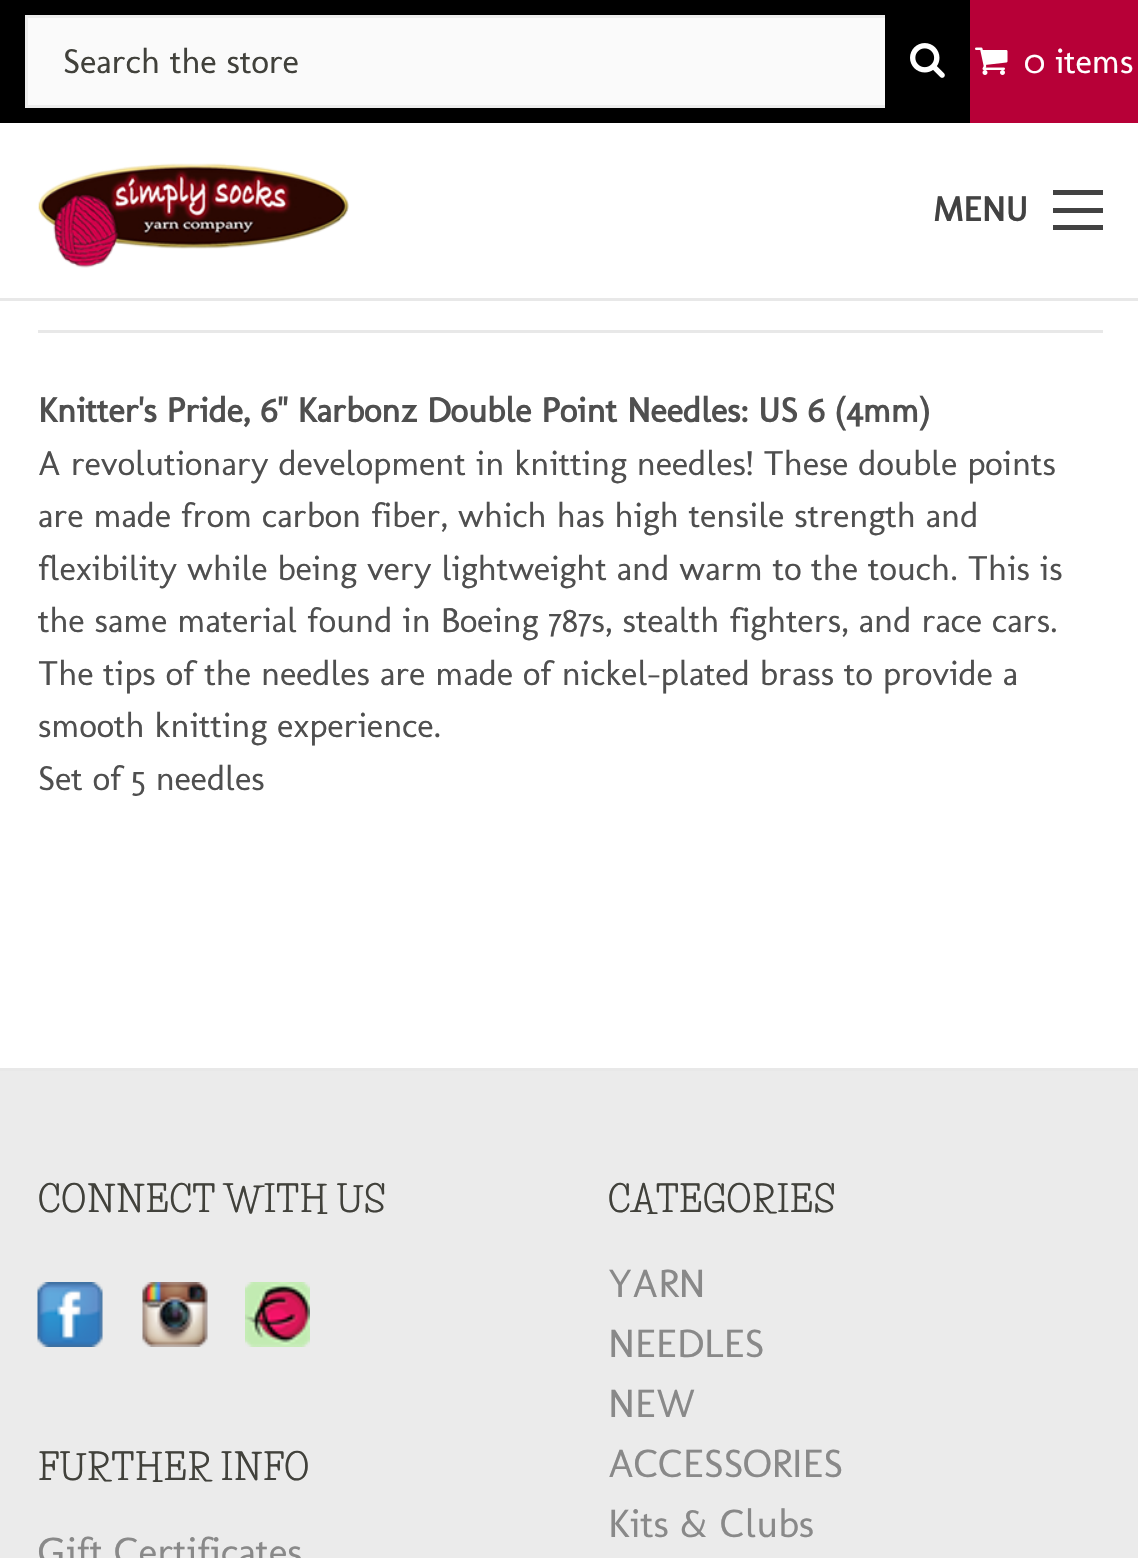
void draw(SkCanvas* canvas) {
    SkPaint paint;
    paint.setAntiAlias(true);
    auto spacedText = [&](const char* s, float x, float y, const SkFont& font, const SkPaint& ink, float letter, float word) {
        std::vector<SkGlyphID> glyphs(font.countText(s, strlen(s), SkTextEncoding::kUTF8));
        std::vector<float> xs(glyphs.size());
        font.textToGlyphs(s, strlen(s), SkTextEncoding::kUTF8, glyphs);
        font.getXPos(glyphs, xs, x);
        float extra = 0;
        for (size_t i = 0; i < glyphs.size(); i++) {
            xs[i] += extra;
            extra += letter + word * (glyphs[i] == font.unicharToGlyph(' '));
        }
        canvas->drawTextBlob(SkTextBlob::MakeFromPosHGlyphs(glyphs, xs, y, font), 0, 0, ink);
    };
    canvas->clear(0xFFFFFFFF);
    paint.setColor(0xFFE8E8E8);
    canvas->drawRect(SkRect::MakeXYWH(0, 298, 1138, 3), paint);
    paint.setColor(0xFF000000);
    canvas->drawRect(SkRect::MakeXYWH(0, 0, 970, 123), paint);
    paint.setColor(0xFFFAFAFA);
    canvas->drawRect(SkRect::MakeXYWH(28, 18, 857, 87), paint);
    paint.setStyle(SkPaint::kStroke_Style);
    paint.setStrokeWidth(3);
    paint.setColor(0xFFEDEDED);
    canvas->drawRect(SkRect::MakeXYWH(26.5f, 16.5f, 917, 90), paint);
    SkFont font1(fontMgr->matchFamilyStyle("Molengo", SkFontStyle::Normal()), 35);
    font1.setSubpixel(true);
    paint.setStyle(SkPaint::kFill_Style);
    paint.setColor(0xFF41413B);
    canvas->drawString("Search the store", 63, 73, font1, paint);
    paint.setColor(0xFF000000);
    canvas->drawRect(SkRect::MakeXYWH(885, 15, 60, 93), paint);
    canvas->drawImageRect(SkImages::DeferredFromEncodedData(SkData::MakeFromFileName("img1.png")), SkRect::MakeXYWH(910, 43, 35, 35), SkSamplingOptions());
    canvas->drawImageRect(SkImages::DeferredFromEncodedData(SkData::MakeFromFileName("img2.png")), SkRect::MakeXYWH(38, 163, 311, 105), SkSamplingOptions());
    paint.setColor(0xFFB70037);
    canvas->drawRect(SkRect::MakeXYWH(970, 0, 168, 123), paint);
    canvas->drawImageRect(SkImages::DeferredFromEncodedData(SkData::MakeFromFileName("img3.png")), SkRect::MakeXYWH(975, 47, 33, 28), SkSamplingOptions());
    paint.setColor(0xFFFFFFFF);
    canvas->drawString("0 items", 1024, 73, font1, paint);
    paint.setColor(0xFF424242);
    canvas->drawRect(SkRect::MakeXYWH(1053, 208, 50, 5), paint);
    canvas->drawRect(SkRect::MakeXYWH(1053, 190, 50, 5), paint);
    SkFont font2(fontMgr->matchFamilyStyle("Molengo", SkFontStyle::Bold()), 35);
    font2.setSubpixel(true);
    canvas->drawString("MENU", 933, 221, font2, paint);
    canvas->drawRect(SkRect::MakeXYWH(1053, 225, 50, 5), paint);
    paint.setColor(0xFFE8E8E8);
    canvas->drawRect(SkRect::MakeXYWH(38, 330, 1065, 3), paint);
    paint.setColor(0xFF4F4F4F);
    canvas->drawString("Knitter's Pride, 6\" Karbonz Double Point Needles: US 6 (4mm)", 38, 422, font2, paint);
    canvas->drawString("A revolutionary development in knitting needles! These double points", 38, 475, font1, paint);
    canvas->drawString("are made from carbon fiber, which has high tensile strength and", 38, 527, font1, paint);
    canvas->drawString("flexibility while being very lightweight and warm to the touch. This is", 38, 580, font1, paint);
    canvas->drawString("the same material found in Boeing 787s, stealth fighters, and race cars.", 38, 632, font1, paint);
    canvas->drawString("The tips of the needles are made of nickel-plated brass to provide a", 38, 685, font1, paint);
    canvas->drawString("smooth knitting experience.", 38, 737, font1, paint);
    canvas->drawString("Set of 5 needles", 38, 790, font1, paint);
    paint.setColor(0xFFEBEBEB);
    canvas->drawRect(SkRect::MakeXYWH(0, 1071, 1138, 487), paint);
    paint.setColor(0xFFE8E8E8);
    canvas->drawRect(SkRect::MakeXYWH(0, 1068, 1138, 3), paint);
    SkFont font3(fontMgr->matchFamilyStyle("Life Savers", SkFontStyle::Bold()), 35);
    font3.setSubpixel(true);
    paint.setColor(0xFF41413B);
    spacedText("CONNECT WITH US", 38, 1212, font3, paint, 0.6f, 0);
    canvas->drawImageRect(SkImages::DeferredFromEncodedData(SkData::MakeFromFileName("img4.png")), SkRect::MakeXYWH(37, 1282, 66, 65), SkSamplingOptions());
    canvas->drawImageRect(SkImages::DeferredFromEncodedData(SkData::MakeFromFileName("img5.png")), SkRect::MakeXYWH(142, 1282, 66, 65), SkSamplingOptions());
    canvas->drawImageRect(SkImages::DeferredFromEncodedData(SkData::MakeFromFileName("img6.png")), SkRect::MakeXYWH(245, 1282, 65, 65), SkSamplingOptions());
    spacedText("FURTHER INFO", 38, 1480, font3, paint, 0.6f, 0);
    SkFont font4(fontMgr->matchFamilyStyle("Molengo", SkFontStyle::Normal()), 40);
    font4.setSubpixel(true);
    paint.setColor(0xFF898989);
    canvas->drawString("Gift Certificates", 38, 1565, font4, paint);
    paint.setColor(0xFF41413B);
    spacedText("CATEGORIES", 608, 1212, font3, paint, 0.6f, 0);
    paint.setColor(0xFF898989);
    canvas->drawString("YARN", 608, 1297, font4, paint);
    canvas->drawString("NEEDLES", 608, 1357, font4, paint);
    canvas->drawString("NEW", 608, 1417, font4, paint);
    canvas->drawString("ACCESSORIES", 608, 1477, font4, paint);
    canvas->drawString("Kits & Clubs", 608, 1537, font4, paint);
}
